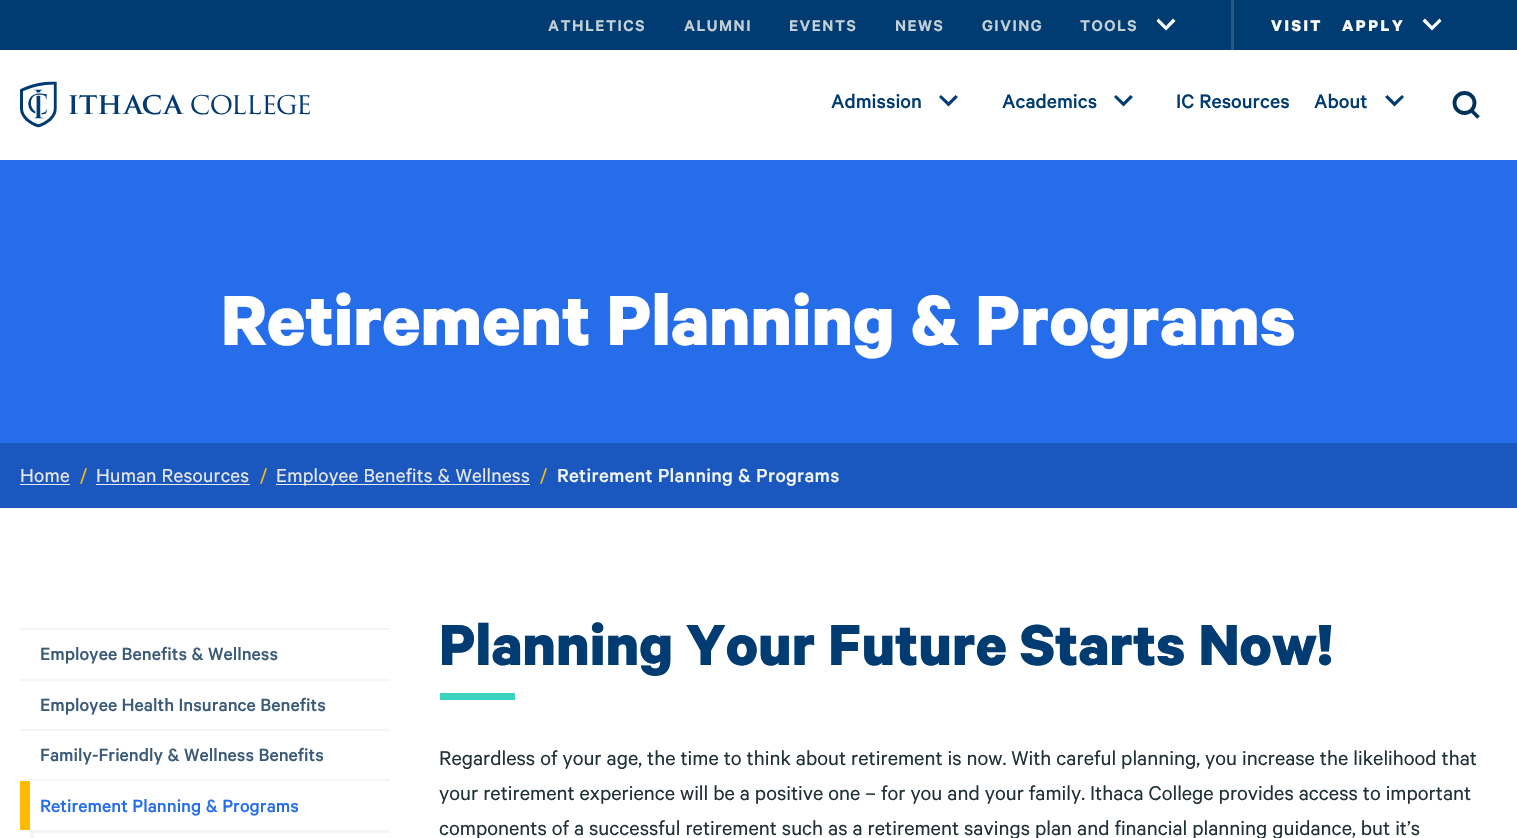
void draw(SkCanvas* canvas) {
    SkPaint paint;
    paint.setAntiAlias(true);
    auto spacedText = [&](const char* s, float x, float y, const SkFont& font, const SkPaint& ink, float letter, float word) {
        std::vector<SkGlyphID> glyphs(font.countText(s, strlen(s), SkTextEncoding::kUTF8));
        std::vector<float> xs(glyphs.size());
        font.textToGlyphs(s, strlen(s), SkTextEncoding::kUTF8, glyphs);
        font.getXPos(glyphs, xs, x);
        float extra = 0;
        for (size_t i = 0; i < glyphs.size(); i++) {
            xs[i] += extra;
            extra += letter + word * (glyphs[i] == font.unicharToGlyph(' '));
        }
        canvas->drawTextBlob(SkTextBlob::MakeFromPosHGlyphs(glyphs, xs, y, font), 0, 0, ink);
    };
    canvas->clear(0xFFFFFFFF);
    paint.setColor(0xFF003B71);
    canvas->drawRect(SkRect::MakeXYWH(0, 0, 1517, 50), paint);
    SkFont font1(fontMgr->matchFamilyStyle("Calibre", SkFontStyle(600, SkFontStyle::kNormal_Width, SkFontStyle::kUpright_Slant)), 17.5f);
    font1.setSubpixel(true);
    paint.setColor(0xFFC3D1D7);
    spacedText("ATHLETICS", 548, 31, font1, paint, 1.5f, 0);
    spacedText("ALUMNI", 684, 31, font1, paint, 1.5f, 0);
    spacedText("EVENTS", 789, 31, font1, paint, 1.5f, 0);
    spacedText("NEWS", 895, 31, font1, paint, 1.5f, 0);
    spacedText("GIVING", 982, 31, font1, paint, 1.5f, 0);
    spacedText("TOOLS", 1080, 31, font1, paint, 1.5f, 0);
    paint.setColor(0xFFFFFFFF);
    canvas->drawPath(SkPathBuilder().moveTo(1158.5f, 18.5f).lineTo(1166, 26).lineTo(1173, 18.5f).lineTo(1175.5f, 21).lineTo(1166, 30.5f).lineTo(1156.5f, 21).close().detach(), paint);
    paint.setColor(0xFF265886);
    canvas->drawRect(SkRect::MakeXYWH(1231, 0, 3, 50), paint);
    SkFont font2(fontMgr->matchFamilyStyle("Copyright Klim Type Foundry", SkFontStyle::Bold()), 17.5f);
    font2.setSubpixel(true);
    paint.setColor(0xFFFFFFFF);
    spacedText("VISIT", 1271, 31, font2, paint, 2.5f, 0);
    spacedText("APPLY", 1342, 31, font2, paint, 2.5f, 0);
    canvas->drawPath(SkPathBuilder().moveTo(1425, 18.5f).lineTo(1432, 26).lineTo(1439.5f, 18.5f).lineTo(1441.5f, 21).lineTo(1432, 30.5f).lineTo(1422.5f, 21).close().detach(), paint);
    canvas->drawImageRect(SkImages::DeferredFromEncodedData(SkData::MakeFromFileName("img1.png")), SkRect::MakeXYWH(20, 81, 290, 47), SkSamplingOptions());
    SkFont font3(fontMgr->matchFamilyStyle("Calibre", SkFontStyle(500, SkFontStyle::kNormal_Width, SkFontStyle::kUpright_Slant)), 22);
    font3.setSubpixel(true);
    paint.setColor(0xFF003B71);
    canvas->drawString("Admission", 831, 108, font3, paint);
    canvas->drawPath(SkPathBuilder().moveTo(941, 95).lineTo(948.5f, 102).lineTo(955.5f, 95).lineTo(958, 97).lineTo(948.5f, 106.5f).lineTo(939, 97).close().detach(), paint);
    canvas->drawString("Academics", 1002, 108, font3, paint);
    canvas->drawPath(SkPathBuilder().moveTo(1116, 95).lineTo(1123.5f, 102).lineTo(1130.5f, 95).lineTo(1133, 97).lineTo(1123.5f, 106.5f).lineTo(1114, 97).close().detach(), paint);
    canvas->drawString("IC Resources", 1176, 108, font3, paint);
    canvas->drawString("About", 1314, 108, font3, paint);
    canvas->drawPath(SkPathBuilder().moveTo(1387.5f, 95).lineTo(1394.5f, 102).lineTo(1402, 95).lineTo(1404, 97).lineTo(1394.5f, 106.5f).lineTo(1385, 97).close().detach(), paint);
    paint.setStyle(SkPaint::kStroke_Style);
    paint.setStrokeWidth(3.8f);
    paint.setColor(0xFF013158);
    canvas->drawCircle(1464.5f, 103, 10, paint);
    canvas->drawPath(SkPathBuilder().moveTo(1478.5f, 117.5f).lineTo(1470.5f, 109.5f).detach(), paint);
    paint.setStyle(SkPaint::kFill_Style);
    paint.setColor(0xFF266DEA);
    canvas->drawRect(SkRect::MakeXYWH(0, 160, 1517, 283), paint);
    SkFont font4(fontMgr->matchFamilyStyle("Copyright Klim Type Foundry", SkFontStyle::Bold()), 80);
    font4.setSubpixel(true);
    paint.setColor(0xFFFFFFFF);
    canvas->drawString("Retirement Planning & Programs", 221, 345, font4, paint);
    paint.setColor(0xFF1A57BF);
    canvas->drawRect(SkRect::MakeXYWH(0, 443, 1517, 65), paint);
    SkFont font5(fontMgr->matchFamilyStyle("Copyright Klim Type Foundry", SkFontStyle::Normal()), 21.25f);
    font5.setSubpixel(true);
    paint.setColor(0xFFE8E8E8);
    spacedText("Home", 20, 482, font5, paint, 0.25f, 0);
    canvas->drawRect(SkRect::MakeXYWH(20, 484, 50, 1), paint);
    paint.setColor(0xFFFFBB00);
    canvas->drawString("/", 80, 482, font5, paint);
    paint.setColor(0xFFE8E8E8);
    spacedText("Human Resources", 96, 482, font5, paint, 0.25f, 0);
    canvas->drawRect(SkRect::MakeXYWH(96, 484, 154, 1), paint);
    paint.setColor(0xFFFFBB00);
    canvas->drawString("/", 260, 482, font5, paint);
    paint.setColor(0xFFE8E8E8);
    canvas->drawRect(SkRect::MakeXYWH(276, 484, 254, 1), paint);
    spacedText("Employee Benefits & Wellness", 276, 482, font5, paint, 0.25f, 0);
    paint.setColor(0xFFFFBB00);
    canvas->drawString("/", 540, 482, font5, paint);
    SkFont font6(fontMgr->matchFamilyStyle("Calibre", SkFontStyle(500, SkFontStyle::kNormal_Width, SkFontStyle::kUpright_Slant)), 21.25f);
    font6.setSubpixel(true);
    paint.setColor(0xFFF3F6F7);
    spacedText("Retirement Planning & Programs", 557, 482, font6, paint, 0.25f, 0);
    canvas->drawRect(SkRect::MakeXYWH(20, 628, 370, 2), paint);
    SkFont font7(fontMgr->matchFamilyStyle("Calibre", SkFontStyle(500, SkFontStyle::kNormal_Width, SkFontStyle::kUpright_Slant)), 20);
    font7.setSubpixel(true);
    paint.setColor(0xFF3A5A79);
    canvas->drawString("Employee Benefits & Wellness", 40, 660, font7, paint);
    paint.setColor(0xFFF3F6F7);
    canvas->drawRect(SkRect::MakeXYWH(20, 679, 370, 2), paint);
    paint.setColor(0xFF3A5A79);
    canvas->drawString("Employee Health Insurance Benefits", 40, 711, font7, paint);
    paint.setColor(0xFFF3F6F7);
    canvas->drawRect(SkRect::MakeXYWH(20, 729, 370, 2), paint);
    paint.setColor(0xFF3A5A79);
    canvas->drawString("Family-Friendly & Wellness Benefits", 40, 761, font7, paint);
    paint.setColor(0xFFF3F6F7);
    canvas->drawRect(SkRect::MakeXYWH(20, 779, 370, 2), paint);
    paint.setColor(0xFFFFBB00);
    canvas->drawRect(SkRect::MakeXYWH(20, 781, 10, 49), paint);
    paint.setColor(0xFF266DEA);
    canvas->drawString("Retirement Planning & Programs", 40, 812, font7, paint);
    paint.setColor(0xFFF3F6F7);
    canvas->drawRect(SkRect::MakeXYWH(30, 830, 4, 8), paint);
    canvas->drawRect(SkRect::MakeXYWH(34, 830, 356, 3), paint);
    SkFont font8(fontMgr->matchFamilyStyle("Copyright Klim Type Foundry", SkFontStyle::Bold()), 65);
    font8.setSubpixel(true);
    paint.setColor(0xFF003B71);
    canvas->drawString("Planning Your Future Starts Now!", 439, 665, font8, paint);
    paint.setColor(0xFF3CD4BF);
    canvas->drawRect(SkRect::MakeXYWH(440, 693, 75, 7), paint);
    SkFont font9(fontMgr->matchFamilyStyle("Copyright Klim Type Foundry", SkFontStyle::Normal()), 22.5f);
    font9.setSubpixel(true);
    paint.setColor(0xFF213138);
    canvas->drawString("Regardless of your age, the time to think about retirement is now. With careful planning, you increase the likelihood that", 439, 765, font9, paint);
    canvas->drawString("your retirement experience will be a positive one – for you and your family. Ithaca College provides access to important", 439, 800, font9, paint);
    canvas->drawString("components of a successful retirement such as a retirement savings plan and financial planning guidance, but it’s", 439, 835, font9, paint);
}
